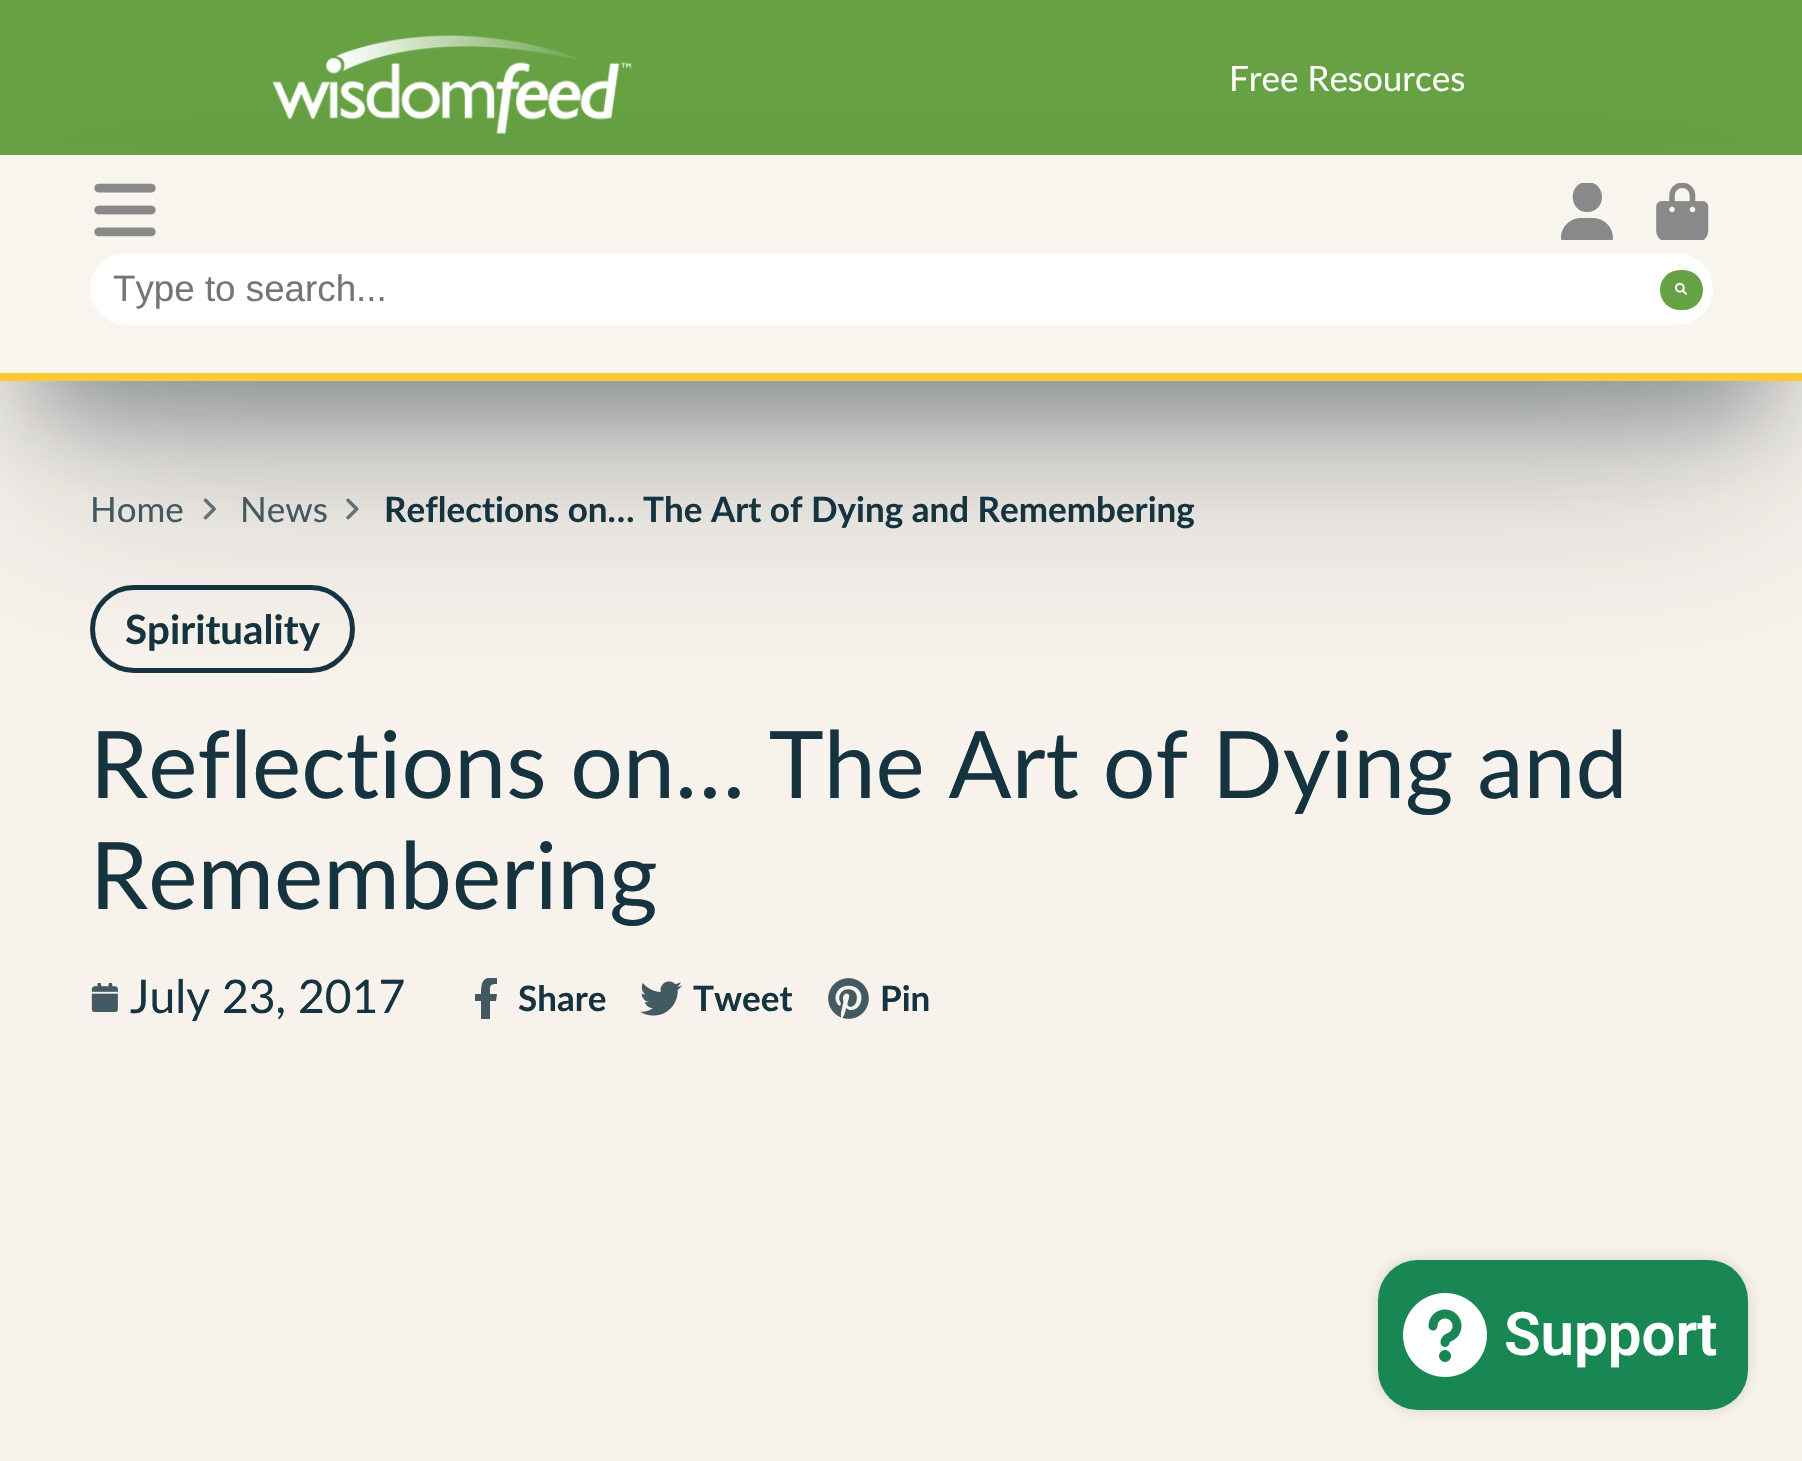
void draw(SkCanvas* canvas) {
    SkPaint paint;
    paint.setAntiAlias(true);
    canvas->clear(0xFFF7F2EC);
    paint.setColor(0xFF66A143);
    canvas->drawRect(SkRect::MakeXYWH(0, 0, 1802, 155), paint);
    canvas->drawImageRect(SkImages::DeferredFromEncodedData(SkData::MakeFromFileName("img1.png")), SkRect::MakeXYWH(272, 34, 360, 100), SkSamplingOptions());
    SkFont font1(fontMgr->matchFamilyStyle("Lato", SkFontStyle::Normal()), 35);
    font1.setSubpixel(true);
    paint.setColor(0xFFFFFFFF);
    canvas->drawString("Free Resources", 1229, 91, font1, paint);
    canvas->drawImageRect(SkImages::DeferredFromEncodedData(SkData::MakeFromFileName("img5.png")), SkRect::MakeXYWH(203, 498, 13, 22), SkSamplingOptions());
    canvas->drawImageRect(SkImages::DeferredFromEncodedData(SkData::MakeFromFileName("img6.png")), SkRect::MakeXYWH(346, 498, 13, 22), SkSamplingOptions());
    paint.setColor(0x660F242D);
    paint.setMaskFilter(SkMaskFilter::MakeBlur(kNormal_SkBlurStyle, 48));
    canvas->drawRect(SkRect::MakeXYWH(35, 255, 1733, 155), paint);
    paint.setMaskFilter(nullptr);
    paint.setStyle(SkPaint::kStroke_Style);
    paint.setStrokeWidth(5);
    paint.setColor(0xFF163340);
    canvas->drawRoundRect(SkRect::MakeXYWH(92.5f, 587.5f, 260, 83), 41.5f, 41.5f, paint);
    paint.setStyle(SkPaint::kFill_Style);
    paint.setColor(0x4D0F242D);
    paint.setMaskFilter(SkMaskFilter::MakeBlur(kNormal_SkBlurStyle, 109.5f));
    canvas->drawRect(SkRect::MakeXYWH(35, 300, 1733, 155), paint);
    paint.setMaskFilter(nullptr);
    paint.setColor(0xFFF8F4EE);
    canvas->drawRect(SkRect::MakeXYWH(0, 155, 1802, 218), paint);
    paint.setColor(0xFFFDC831);
    canvas->drawRect(SkRect::MakeXYWH(0, 373, 1802, 8), paint);
    canvas->drawImageRect(SkImages::DeferredFromEncodedData(SkData::MakeFromFileName("img2.png")), SkRect::MakeXYWH(94, 183, 62, 54), SkSamplingOptions());
    canvas->save();
    canvas->clipRect(SkRect::MakeXYWH(1558, 183, 59, 57));
    paint.setColor(0xFF898989);
    canvas->drawPath(SkPathBuilder().moveTo(1587, 212).cubicTo(1607, 212, 1607, 182, 1587, 182).cubicTo(1568, 182, 1568, 212, 1587, 212).close().moveTo(1593, 218).lineTo(1581, 218).cubicTo(1570, 218, 1561, 227, 1561, 238).cubicTo(1561, 240, 1563, 242, 1565, 242).lineTo(1609, 242).cubicTo(1611, 242, 1613, 240, 1613, 238).cubicTo(1613, 227, 1604, 218, 1593, 218).close().detach(), paint);
    canvas->restore();
    canvas->drawImageRect(SkImages::DeferredFromEncodedData(SkData::MakeFromFileName("img3.png")), SkRect::MakeXYWH(1656, 183, 53, 57), SkSamplingOptions());
    paint.setColor(0xFFFFFFFF);
    canvas->drawRoundRect(SkRect::MakeXYWH(90, 253, 1623, 72), 36, 36, paint);
    SkFont font2(fontMgr->matchFamilyStyle("Liberation Sans", SkFontStyle::Normal()), 36.75f);
    font2.setSubpixel(true);
    paint.setColor(0xFF757575);
    canvas->drawString("Type to search...", 113, 301, font2, paint);
    paint.setColor(0xFF66A143);
    canvas->drawRoundRect(SkRect::MakeXYWH(1660, 270, 43, 40), 20, 20, paint);
    canvas->drawImageRect(SkImages::DeferredFromEncodedData(SkData::MakeFromFileName("img4.png")), SkRect::MakeXYWH(1675, 282, 12, 13), SkSamplingOptions());
    paint.setColor(0xFF435962);
    canvas->drawString("Home", 90, 522, font1, paint);
    canvas->drawString("News", 240, 522, font1, paint);
    SkFont font3(fontMgr->matchFamilyStyle("Lato", SkFontStyle::Bold()), 35);
    font3.setSubpixel(true);
    paint.setColor(0xFF163340);
    canvas->drawString("Reflections on… The Art of Dying and Remembering", 384, 522, font3, paint);
    SkFont font4(fontMgr->matchFamilyStyle("Lato", SkFontStyle::Bold()), 40.25f);
    font4.setSubpixel(true);
    canvas->drawString("Spirituality", 125, 644, font4, paint);
    SkFont font5(fontMgr->matchFamilyStyle("Lato", SkFontStyle::Normal()), 93.1f);
    font5.setSubpixel(true);
    canvas->drawString("Reflections on… The Art of Dying and", 90, 798, font5, paint);
    canvas->drawString("Remembering", 90, 909, font5, paint);
    canvas->drawImageRect(SkImages::DeferredFromEncodedData(SkData::MakeFromFileName("img7.png")), SkRect::MakeXYWH(91, 983, 27, 29), SkSamplingOptions());
    SkFont font6(fontMgr->matchFamilyStyle("Lato", SkFontStyle::Normal()), 46.25f);
    font6.setSubpixel(true);
    canvas->drawString("July 23, 2017", 130, 1013, font6, paint);
    canvas->save();
    canvas->clipRect(SkRect::MakeXYWH(465, 978, 42, 41));
    paint.setColor(0xFF435962);
    canvas->drawPath(SkPathBuilder().moveTo(496, 1001).lineTo(497, 994).lineTo(490, 994).cubicTo(490, 986, 489, 984, 497, 984).lineTo(497, 978).cubicTo(483, 976, 481, 981, 481, 994).lineTo(475, 994).lineTo(475, 1001).lineTo(481, 1001).lineTo(481, 1019).lineTo(490, 1019).lineTo(490, 1001).close().detach(), paint);
    canvas->restore();
    paint.setColor(0xFF163340);
    canvas->drawString("Share", 518, 1011, font3, paint);
    canvas->drawImageRect(SkImages::DeferredFromEncodedData(SkData::MakeFromFileName("img8.png")), SkRect::MakeXYWH(640, 981, 42, 35), SkSamplingOptions());
    canvas->drawString("Tweet", 693, 1011, font3, paint);
    canvas->drawImageRect(SkImages::DeferredFromEncodedData(SkData::MakeFromFileName("img9.png")), SkRect::MakeXYWH(828, 978, 41, 41), SkSamplingOptions());
    canvas->drawString("Pin", 880, 1011, font3, paint);
    paint.setColor(0x26000000);
    paint.setMaskFilter(SkMaskFilter::MakeBlur(kNormal_SkBlurStyle, 6));
    canvas->drawRoundRect(SkRect::MakeXYWH(1378, 1260, 370, 150), 40, 40, paint);
    paint.setMaskFilter(nullptr);
    paint.setColor(0xFF198754);
    canvas->drawRoundRect(SkRect::MakeXYWH(1378, 1260, 370, 150), 40, 40, paint);
    canvas->drawImageRect(SkImages::DeferredFromEncodedData(SkData::MakeFromFileName("img10.png")), SkRect::MakeXYWH(1403, 1293, 84, 84), SkSamplingOptions());
    SkFont font7(fontMgr->matchFamilyStyle("Roboto", SkFontStyle(600, SkFontStyle::kNormal_Width, SkFontStyle::kUpright_Slant)), 60);
    font7.setSubpixel(true);
    paint.setColor(0xFFFFFFFF);
    canvas->drawString("Support", 1504, 1355, font7, paint);
}
